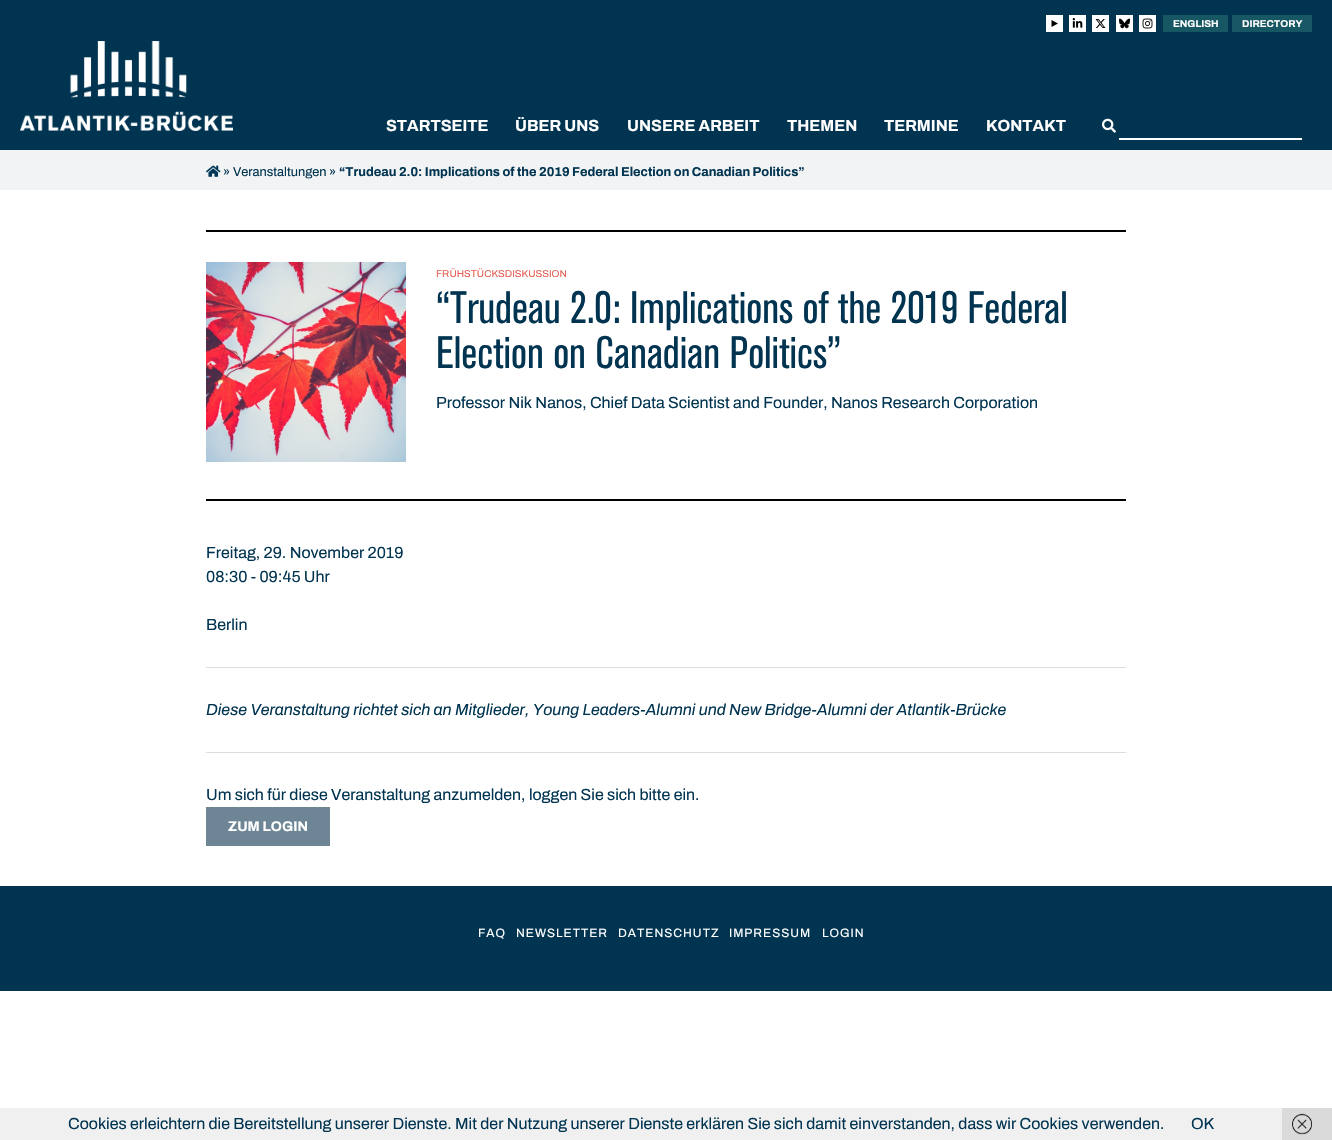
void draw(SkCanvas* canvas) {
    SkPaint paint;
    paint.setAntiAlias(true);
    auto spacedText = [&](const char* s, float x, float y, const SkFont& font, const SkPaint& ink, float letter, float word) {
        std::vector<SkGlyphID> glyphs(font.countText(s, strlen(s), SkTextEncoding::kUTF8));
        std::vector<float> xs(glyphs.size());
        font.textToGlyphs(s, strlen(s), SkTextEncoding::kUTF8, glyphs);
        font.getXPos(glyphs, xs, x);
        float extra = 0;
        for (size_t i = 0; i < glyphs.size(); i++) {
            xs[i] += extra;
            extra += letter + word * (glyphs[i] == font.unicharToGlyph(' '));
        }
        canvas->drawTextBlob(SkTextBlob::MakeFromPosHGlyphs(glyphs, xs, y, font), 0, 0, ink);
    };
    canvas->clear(0xFFFFFFFF);
    paint.setColor(0xFF013451);
    canvas->drawRect(SkRect::MakeXYWH(0, 0, 1332, 150), paint);
    paint.setColor(0xFFFFFFFF);
    canvas->drawRect(SkRect::MakeXYWH(1046, 15, 17, 17), paint);
    paint.setColor(0xFF000000);
    canvas->drawPath(SkPathBuilder().moveTo(1051.5f, 27).lineTo(1051.5f, 20).lineTo(1058, 23.5f).close().detach(), paint);
    paint.setColor(0xFFFFFFFF);
    canvas->drawRect(SkRect::MakeXYWH(1069, 15, 17, 17), paint);
    canvas->drawImageRect(SkImages::DeferredFromEncodedData(SkData::MakeFromFileName("img1.png")), SkRect::MakeXYWH(1072, 18, 11, 10), SkSamplingOptions());
    canvas->drawRect(SkRect::MakeXYWH(1092, 15, 17, 17), paint);
    canvas->drawImageRect(SkImages::DeferredFromEncodedData(SkData::MakeFromFileName("img2.png")), SkRect::MakeXYWH(1095, 19, 11, 9), SkSamplingOptions());
    canvas->drawRect(SkRect::MakeXYWH(1116, 15, 17, 17), paint);
    canvas->drawImageRect(SkImages::DeferredFromEncodedData(SkData::MakeFromFileName("img3.png")), SkRect::MakeXYWH(1119, 18, 12, 11), SkSamplingOptions());
    canvas->drawRect(SkRect::MakeXYWH(1139, 15, 17, 17), paint);
    canvas->drawImageRect(SkImages::DeferredFromEncodedData(SkData::MakeFromFileName("img4.png")), SkRect::MakeXYWH(1142, 18, 11, 11), SkSamplingOptions());
    paint.setColor(0xFF175763);
    canvas->drawRect(SkRect::MakeXYWH(1163, 15, 65, 17), paint);
    SkFont font1(fontMgr->matchFamilyStyle("Archivo", SkFontStyle::Bold()), 10);
    font1.setSubpixel(true);
    paint.setColor(0xFFFFFFFF);
    canvas->drawString("ENGLISH", 1173, 27, font1, paint);
    paint.setColor(0xFF175763);
    canvas->drawRect(SkRect::MakeXYWH(1232, 15, 80, 17), paint);
    paint.setColor(0xFFFFFFFF);
    canvas->drawString("DIRECTORY", 1242, 27, font1, paint);
    canvas->drawImageRect(SkImages::DeferredFromEncodedData(SkData::MakeFromFileName("img5.png")), SkRect::MakeXYWH(20, 41, 213, 90), SkSamplingOptions());
    SkFont font2(fontMgr->matchFamilyStyle("Archivo", SkFontStyle::Bold()), 16);
    font2.setSubpixel(true);
    canvas->drawString("STARTSEITE", 386, 131, font2, paint);
    canvas->drawString("ÜBER UNS", 515, 131, font2, paint);
    canvas->drawString("UNSERE ARBEIT", 627, 131, font2, paint);
    canvas->drawString("THEMEN", 787, 131, font2, paint);
    canvas->drawString("TERMINE", 884, 131, font2, paint);
    canvas->drawString("KONTAKT", 986, 131, font2, paint);
    canvas->drawImageRect(SkImages::DeferredFromEncodedData(SkData::MakeFromFileName("img6.png")), SkRect::MakeXYWH(1102, 118, 14, 15), SkSamplingOptions());
    canvas->drawRect(SkRect::MakeXYWH(1119, 138, 183, 2), paint);
    paint.setColor(0xFFF1F3F4);
    canvas->drawRect(SkRect::MakeXYWH(0, 150, 1332, 40), paint);
    canvas->drawImageRect(SkImages::DeferredFromEncodedData(SkData::MakeFromFileName("img7.png")), SkRect::MakeXYWH(206, 165, 15, 12), SkSamplingOptions());
    SkFont font3(fontMgr->matchFamilyStyle("Archivo", SkFontStyle::Normal()), 12.8f);
    font3.setSubpixel(true);
    paint.setColor(0xFF013451);
    canvas->drawString("»", 223, 176, font3, paint);
    canvas->drawString("Veranstaltungen", 233, 176, font3, paint);
    canvas->drawString("»", 329, 176, font3, paint);
    SkFont font4(fontMgr->matchFamilyStyle("Archivo", SkFontStyle::Bold()), 12.8f);
    font4.setSubpixel(true);
    canvas->drawString("“Trudeau 2.0: Implications of the 2019 Federal Election on Canadian Politics”", 339, 176, font4, paint);
    paint.setColor(0xFF000000);
    canvas->drawRect(SkRect::MakeXYWH(206, 230, 920, 2), paint);
    canvas->drawRect(SkRect::MakeXYWH(206, 499, 920, 2), paint);
    canvas->drawImageRect(SkImages::DeferredFromEncodedData(SkData::MakeFromFileName("img8.png")), SkRect::MakeXYWH(206, 262, 200, 200), SkSamplingOptions());
    SkFont font5(fontMgr->matchFamilyStyle("Archivo", SkFontStyle::Normal()), 10);
    font5.setSubpixel(true);
    paint.setColor(0xFFE55F53);
    canvas->drawString("FRÜHSTÜCKSDISKUSSION", 436, 277, font5, paint);
    SkFont font6(fontMgr->matchFamilyStyle("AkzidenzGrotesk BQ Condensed", SkFontStyle(500, SkFontStyle::kNormal_Width, SkFontStyle::kUpright_Slant)), 45);
    font6.setSubpixel(true);
    paint.setColor(0xFF013451);
    canvas->drawString("“Trudeau 2.0: Implications of the 2019 Federal", 436, 323, font6, paint);
    canvas->drawString("Election on Canadian Politics”", 436, 368, font6, paint);
    SkFont font7(fontMgr->matchFamilyStyle("Archivo", SkFontStyle::Normal()), 16);
    font7.setSubpixel(true);
    canvas->drawString("Professor Nik Nanos, Chief Data Scientist and Founder, Nanos Research Corporation", 436, 408, font7, paint);
    canvas->drawString("Freitag, 29. November 2019", 206, 558, font7, paint);
    canvas->drawString("08:30 - 09:45 Uhr", 206, 582, font7, paint);
    canvas->drawString("Berlin", 206, 630, font7, paint);
    paint.setColor(0xFFDDDDDD);
    canvas->drawRect(SkRect::MakeXYWH(206, 667, 920, 1), paint);
    SkFont font8(fontMgr->matchFamilyStyle("Archivo", SkFontStyle::Italic()), 16);
    font8.setSubpixel(true);
    paint.setColor(0xFF013451);
    canvas->drawString("Diese Veranstaltung richtet sich an Mitglieder, Young Leaders-Alumni und New Bridge-Alumni der Atlantik-Brücke", 206, 715, font8, paint);
    paint.setColor(0xFFDDDDDD);
    canvas->drawRect(SkRect::MakeXYWH(206, 752, 920, 1), paint);
    paint.setColor(0xFF013451);
    canvas->drawString("Um sich für diese Veranstaltung anzumelden, loggen Sie sich bitte ein.", 206, 800, font7, paint);
    paint.setColor(0xFF6D8594);
    canvas->drawRect(SkRect::MakeXYWH(206, 807, 124, 39), paint);
    SkFont font9(fontMgr->matchFamilyStyle("Archivo", SkFontStyle::Bold()), 14);
    font9.setSubpixel(true);
    paint.setColor(0xFFFFFFFF);
    canvas->drawString("ZUM LOGIN", 228, 831, font9, paint);
    paint.setColor(0xFF013451);
    canvas->drawRect(SkRect::MakeXYWH(0, 886, 1332, 105), paint);
    SkFont font10(fontMgr->matchFamilyStyle("Archivo", SkFontStyle::Normal()), 12);
    font10.setSubpixel(true);
    paint.setColor(0xFFFFFFFF);
    spacedText("FAQ", 478, 937, font10, paint, 1, 0);
    spacedText("NEWSLETTER", 516, 937, font10, paint, 1, 0);
    spacedText("DATENSCHUTZ", 618, 937, font10, paint, 1, 0);
    spacedText("IMPRESSUM", 729, 937, font10, paint, 1, 0);
    spacedText("LOGIN", 822, 937, font10, paint, 1, 0);
    paint.setColor(0xFFF0F0F0);
    canvas->drawRect(SkRect::MakeXYWH(0, 1108, 1282, 32), paint);
    paint.setColor(0xFF013451);
    canvas->drawString("Cookies erleichtern die Bereitstellung unserer Dienste. Mit der Nutzung unserer Dienste erklären Sie sich damit einverstanden, dass wir Cookies verwenden.", 68, 1129, font7, paint);
    canvas->drawString("OK", 1191, 1129, font7, paint);
    paint.setColor(0xFFDADADA);
    canvas->drawRect(SkRect::MakeXYWH(1282, 1108, 50, 32), paint);
    canvas->drawImageRect(SkImages::DeferredFromEncodedData(SkData::MakeFromFileName("img9.png")), SkRect::MakeXYWH(1292, 1113, 20, 22), SkSamplingOptions());
}
